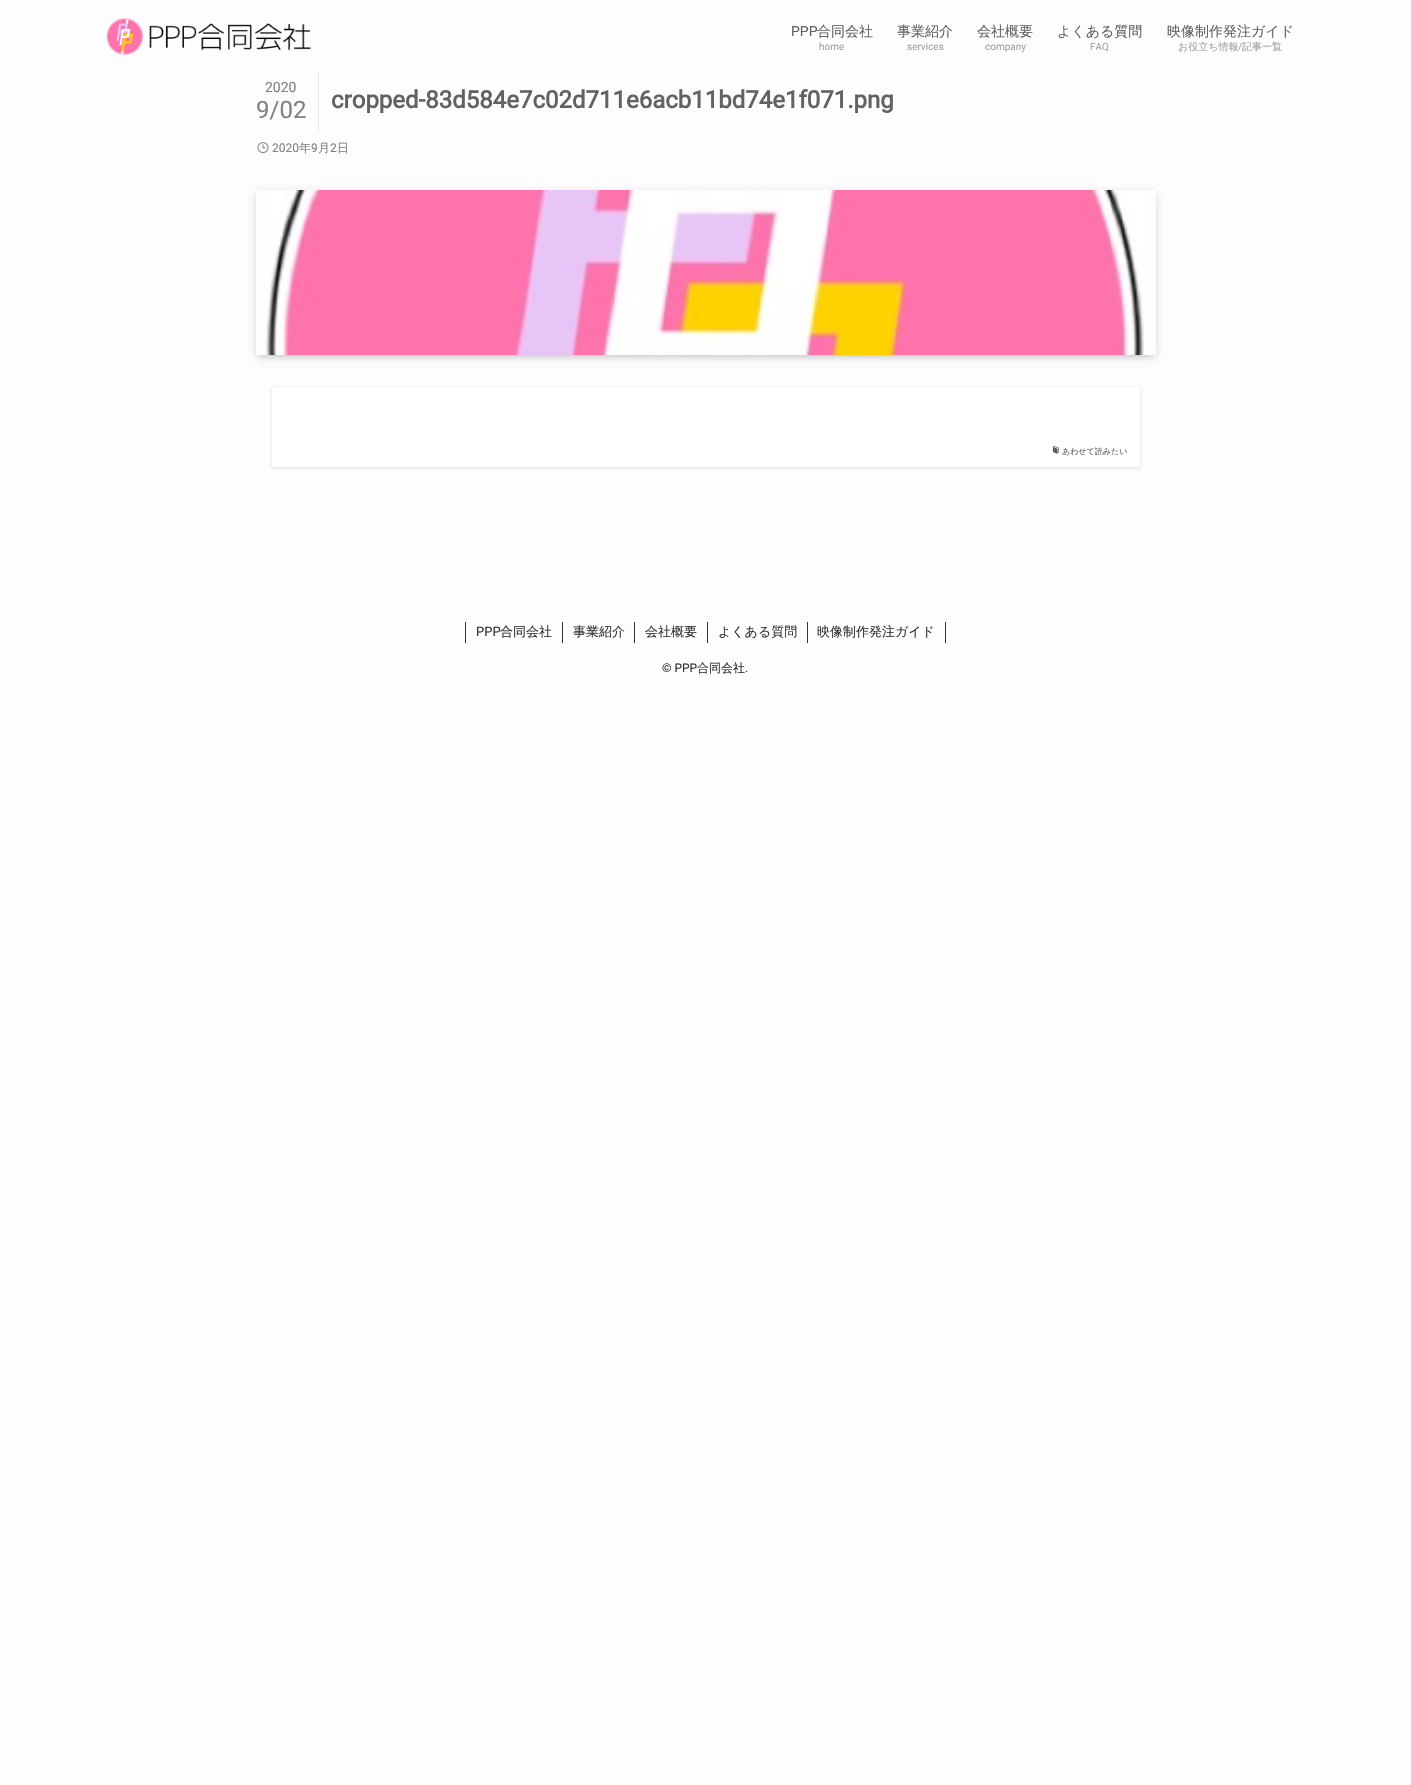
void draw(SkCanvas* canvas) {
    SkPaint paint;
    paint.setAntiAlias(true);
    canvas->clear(0xFFFDFDFD);
    canvas->drawImageRect(SkImages::DeferredFromEncodedData(SkData::MakeFromFileName("img1.png")), SkRect::MakeXYWH(106, 18, 205, 38), SkSamplingOptions());
    SkFont font1(fontMgr->matchFamilyStyle("Roboto", SkFontStyle::Normal()), 14);
    font1.setSubpixel(true);
    paint.setColor(0xFF626262);
    canvas->drawString("PPP", 791, 36, font1, paint);
    SkFont font2(fontMgr->matchFamilyStyle("WenQuanYi Zen Hei", SkFontStyle(500, SkFontStyle::kNormal_Width, SkFontStyle::kUpright_Slant)), 14);
    font2.setSubpixel(true);
    canvas->drawString("合同会社", 817, 36, font2, paint);
    SkFont font3(fontMgr->matchFamilyStyle("Roboto", SkFontStyle::Normal()), 10);
    font3.setSubpixel(true);
    paint.setColor(0xFFA1A1A1);
    canvas->drawString("home", 819, 50, font3, paint);
    paint.setColor(0xFF626262);
    canvas->drawString("事業紹介", 897, 36, font2, paint);
    paint.setColor(0xFFA1A1A1);
    canvas->drawString("services", 907, 50, font3, paint);
    paint.setColor(0xFF626262);
    canvas->drawString("会社概要", 977, 36, font2, paint);
    paint.setColor(0xFFA1A1A1);
    canvas->drawString("company", 985, 50, font3, paint);
    paint.setColor(0xFF626262);
    canvas->drawString("よくある質問", 1057, 36, font2, paint);
    paint.setColor(0xFFA1A1A1);
    canvas->drawString("FAQ", 1090, 50, font3, paint);
    paint.setColor(0xFF626262);
    canvas->drawString("映像制作発注ガイド", 1167, 36, font2, paint);
    SkFont font4(fontMgr->matchFamilyStyle("WenQuanYi Zen Hei", SkFontStyle(500, SkFontStyle::kNormal_Width, SkFontStyle::kUpright_Slant)), 10);
    font4.setSubpixel(true);
    paint.setColor(0xFFA1A1A1);
    canvas->drawString("お役立ち情報", 1178, 50, font4, paint);
    canvas->drawString("/", 1238, 50, font3, paint);
    canvas->drawString("記事一覧", 1242, 50, font4, paint);
    paint.setColor(0xFFE8E8E8);
    canvas->drawRect(SkRect::MakeXYWH(318, 72, 1, 58), paint);
    paint.setColor(0xFF818181);
    canvas->drawString("2020", 265, 92, font1, paint);
    SkFont font5(fontMgr->matchFamilyStyle("Roboto", SkFontStyle::Normal()), 24);
    font5.setSubpixel(true);
    canvas->drawString("9/02", 256, 118, font5, paint);
    SkFont font6(fontMgr->matchFamilyStyle("Roboto", SkFontStyle::Bold()), 24);
    font6.setSubpixel(true);
    paint.setColor(0xFF626262);
    canvas->drawString("cropped-83d584e7c02d711e6acb11bd74e1f071.png", 331, 108, font6, paint);
    canvas->drawImageRect(SkImages::DeferredFromEncodedData(SkData::MakeFromFileName("img2.png")), SkRect::MakeXYWH(257, 142, 12, 12), SkSamplingOptions());
    SkFont font7(fontMgr->matchFamilyStyle("Roboto", SkFontStyle::Normal()), 12);
    font7.setSubpixel(true);
    paint.setColor(0xFF818181);
    canvas->drawString("2020", 272, 152, font7, paint);
    SkFont font8(fontMgr->matchFamilyStyle("WenQuanYi Zen Hei", SkFontStyle(500, SkFontStyle::kNormal_Width, SkFontStyle::kUpright_Slant)), 12);
    font8.setSubpixel(true);
    canvas->drawString("年", 299, 152, font8, paint);
    canvas->drawString("9", 311, 152, font7, paint);
    canvas->drawString("月", 318, 152, font8, paint);
    canvas->drawString("2", 330, 152, font7, paint);
    canvas->drawString("日", 337, 152, font8, paint);
    canvas->save();
    canvas->clipPath(SkPathBuilder(SkPathFillType::kEvenOdd).moveTo(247, 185).lineTo(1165, 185).lineTo(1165, 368).lineTo(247, 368).close().moveTo(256, 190).lineTo(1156, 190).lineTo(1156, 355).lineTo(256, 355).close().detach(), true);
    paint.setColor(0x33000000);
    paint.setMaskFilter(SkMaskFilter::MakeBlur(kNormal_SkBlurStyle, 4));
    canvas->drawRect(SkRect::MakeXYWH(260, 198, 892, 157), paint);
    paint.setMaskFilter(nullptr);
    canvas->restore();
    canvas->save();
    canvas->clipPath(SkPathBuilder(SkPathFillType::kEvenOdd).moveTo(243, 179).lineTo(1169, 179).lineTo(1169, 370).lineTo(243, 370).close().moveTo(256, 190).lineTo(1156, 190).lineTo(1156, 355).lineTo(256, 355).close().detach(), true);
    paint.setColor(0x1A000000);
    paint.setMaskFilter(SkMaskFilter::MakeBlur(kNormal_SkBlurStyle, 4));
    canvas->drawRect(SkRect::MakeXYWH(256, 192, 900, 165), paint);
    paint.setMaskFilter(nullptr);
    canvas->restore();
    canvas->drawImageRect(SkImages::DeferredFromEncodedData(SkData::MakeFromFileName("img3.png")), SkRect::MakeXYWH(266, 190, 878, 165), SkSamplingOptions());
    paint.setColor(0x14000000);
    paint.setMaskFilter(SkMaskFilter::MakeBlur(kNormal_SkBlurStyle, 1.5f));
    canvas->drawRoundRect(SkRect::MakeXYWH(271, 387, 870, 82), 3, 3, paint);
    paint.setMaskFilter(nullptr);
    paint.setColor(0xFFFFFFFF);
    canvas->drawRoundRect(SkRect::MakeXYWH(272, 387, 868, 80), 2, 2, paint);
    canvas->drawImageRect(SkImages::DeferredFromEncodedData(SkData::MakeFromFileName("img4.png")), SkRect::MakeXYWH(1052, 446, 7, 8), SkSamplingOptions());
    SkFont font9(fontMgr->matchFamilyStyle("WenQuanYi Zen Hei", SkFontStyle(500, SkFontStyle::kNormal_Width, SkFontStyle::kUpright_Slant)), 8);
    font9.setSubpixel(true);
    paint.setColor(0xFF5C5C5C);
    canvas->drawString("あわせて読みたい", 1062, 454, font9, paint);
    paint.setColor(0xFF333333);
    canvas->drawRect(SkRect::MakeXYWH(562, 622, 1, 21), paint);
    canvas->drawRect(SkRect::MakeXYWH(465, 622, 1, 21), paint);
    SkFont font10(fontMgr->matchFamilyStyle("Roboto", SkFontStyle::Normal()), 13);
    font10.setSubpixel(true);
    canvas->drawString("PPP", 476, 636, font10, paint);
    SkFont font11(fontMgr->matchFamilyStyle("WenQuanYi Zen Hei", SkFontStyle(500, SkFontStyle::kNormal_Width, SkFontStyle::kUpright_Slant)), 13);
    font11.setSubpixel(true);
    canvas->drawString("合同会社", 500, 636, font11, paint);
    canvas->drawRect(SkRect::MakeXYWH(634, 622, 1, 21), paint);
    canvas->drawString("事業紹介", 573, 636, font11, paint);
    canvas->drawRect(SkRect::MakeXYWH(707, 622, 1, 21), paint);
    canvas->drawString("会社概要", 645, 636, font11, paint);
    canvas->drawRect(SkRect::MakeXYWH(807, 622, 1, 21), paint);
    canvas->drawString("よくある質問", 718, 636, font11, paint);
    canvas->drawRect(SkRect::MakeXYWH(945, 622, 1, 21), paint);
    canvas->drawString("映像制作発注ガイド", 817, 636, font11, paint);
    canvas->drawString("© PPP", 662, 672, font7, paint);
    canvas->drawString("合同会社", 697, 672, font8, paint);
    canvas->drawString(".", 745, 672, font7, paint);
}
